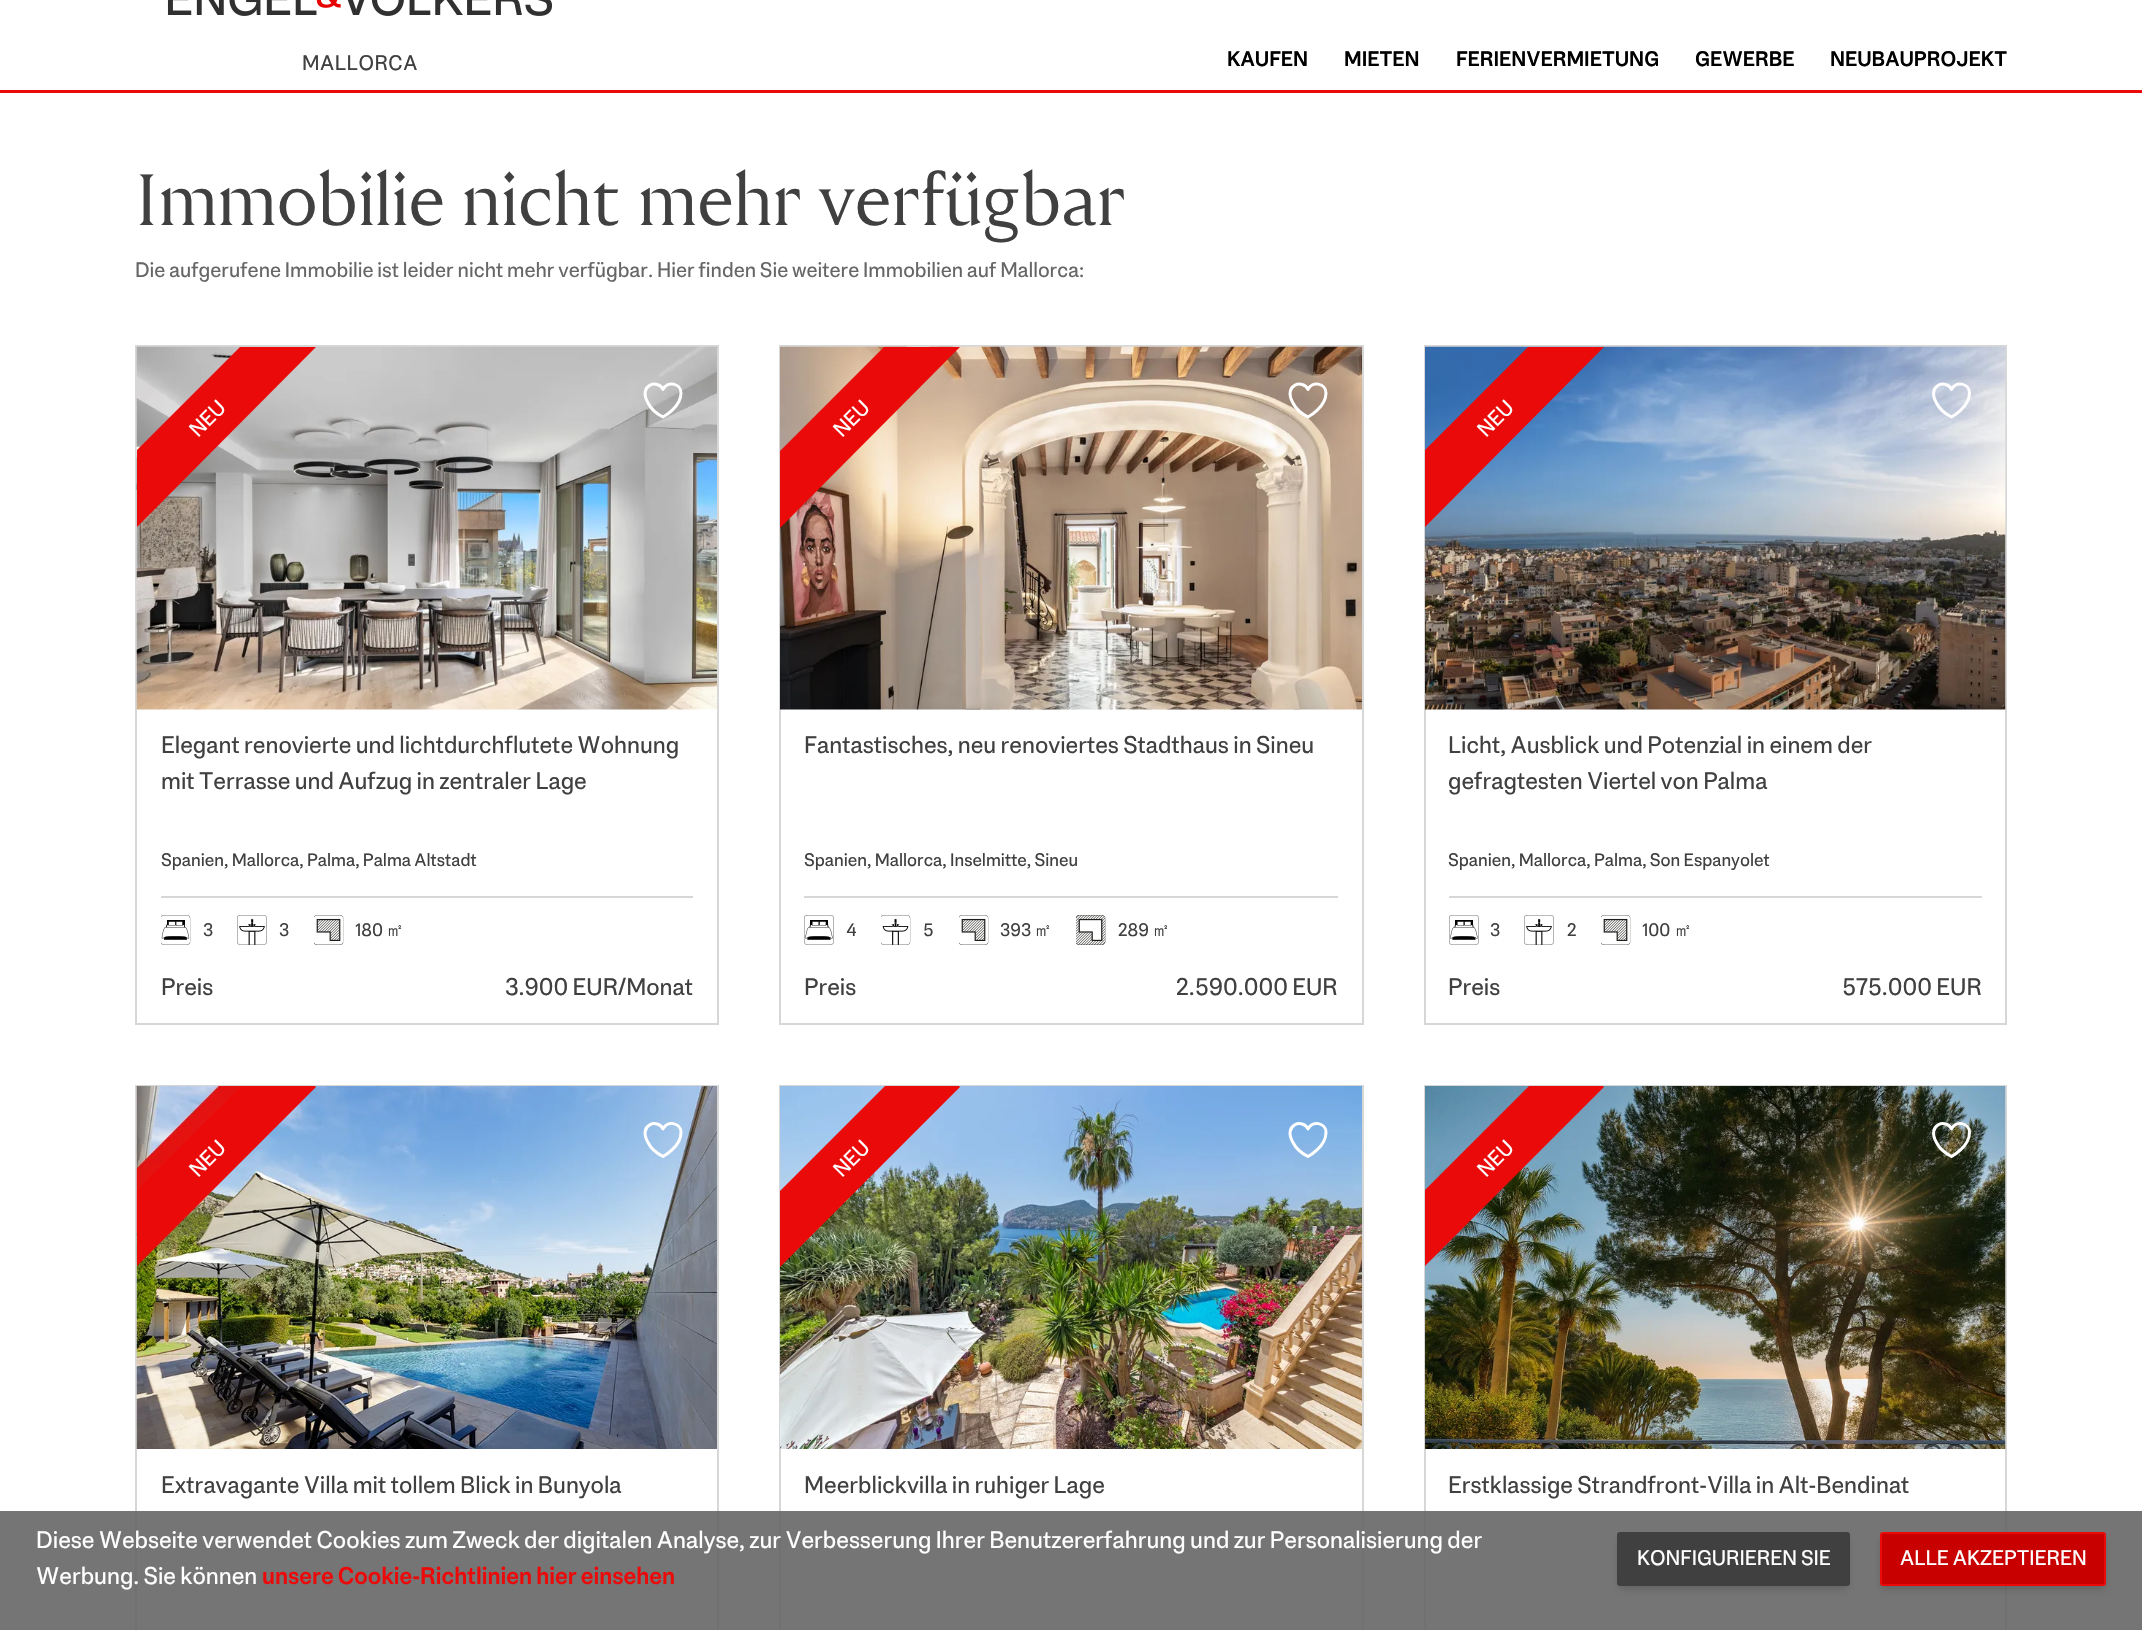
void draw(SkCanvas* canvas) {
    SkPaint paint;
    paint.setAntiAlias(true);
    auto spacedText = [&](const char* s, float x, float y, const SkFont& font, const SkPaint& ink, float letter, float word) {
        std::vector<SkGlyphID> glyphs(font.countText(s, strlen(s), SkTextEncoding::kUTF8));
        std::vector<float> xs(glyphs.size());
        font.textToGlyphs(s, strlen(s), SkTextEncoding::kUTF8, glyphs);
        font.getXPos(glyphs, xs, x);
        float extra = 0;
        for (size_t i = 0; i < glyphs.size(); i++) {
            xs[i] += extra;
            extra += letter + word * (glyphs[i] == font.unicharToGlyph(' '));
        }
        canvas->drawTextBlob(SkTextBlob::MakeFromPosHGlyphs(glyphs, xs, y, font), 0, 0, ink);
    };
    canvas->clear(0xFFFFFFFF);
    paint.setColor(0xFFEB0A0A);
    canvas->drawRect(SkRect::MakeXYWH(0, 90, 2142, 3), paint);
    canvas->drawImageRect(SkImages::DeferredFromEncodedData(SkData::MakeFromFileName("img1.png")), SkRect::MakeXYWH(167, 0, 386, 16), SkSamplingOptions());
    SkFont font1(fontMgr->matchFamilyStyle("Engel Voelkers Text", SkFontStyle::Normal()), 21);
    font1.setSubpixel(true);
    paint.setColor(0xFF404040);
    spacedText("MALLORCA", 302, 70, font1, paint, 0.5f, 0);
    SkFont font2(fontMgr->matchFamilyStyle("Engel Voelkers Text", SkFontStyle::Bold()), 21);
    font2.setSubpixel(true);
    paint.setColor(0xFF000000);
    canvas->drawString("KAUFEN", 1227, 66, font2, paint);
    canvas->drawString("MIETEN", 1344, 66, font2, paint);
    canvas->drawString("FERIENVERMIETUNG", 1456, 66, font2, paint);
    canvas->drawString("GEWERBE", 1695, 66, font2, paint);
    canvas->drawString("NEUBAUPROJEKT", 1830, 66, font2, paint);
    SkFont font3(fontMgr->matchFamilyStyle("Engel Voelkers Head", SkFontStyle::Normal()), 72);
    font3.setSubpixel(true);
    paint.setColor(0xFF404040);
    canvas->drawString("Immobilie nicht mehr verfügbar", 135, 225, font3, paint);
    paint.setColor(0xFF666666);
    canvas->drawString("Die aufgerufene Immobilie ist leider nicht mehr verfügbar. Hier finden Sie weitere Immobilien auf Mallorca:", 135, 277, font1, paint);
    paint.setStyle(SkPaint::kStroke_Style);
    paint.setStrokeWidth(2);
    paint.setColor(0xFFD7D7D7);
    canvas->drawRect(SkRect::MakeXYWH(136, 346, 582, 678), paint);
    canvas->drawImageRect(SkImages::DeferredFromEncodedData(SkData::MakeFromFileName("img2.png")), SkRect::MakeXYWH(136, 346, 581, 364), SkSamplingOptions());
    canvas->save();
    canvas->clipRect(SkRect::MakeXYWH(137, 347, 580, 676));
    paint.setStyle(SkPaint::kFill_Style);
    paint.setColor(0xFFEB0A0A);
    canvas->drawPath(SkPathBuilder().moveTo(98, 489).lineTo(278, 309).lineTo(316, 347).lineTo(136, 528).close().detach(), paint);
    canvas->restore();
    paint.setColor(0xFFFFFFFF);
    canvas->save();
    canvas->rotate(-45, 198, 438);
    canvas->drawString("NEU", 198, 438, font1, paint);
    canvas->restore();
    paint.setStyle(SkPaint::kStroke_Style);
    paint.setStrokeWidth(3);
    paint.setStrokeCap(SkPaint::kRound_Cap);
    paint.setStrokeJoin(SkPaint::kRound_Join);
    canvas->drawPath(SkPathBuilder().moveTo(681, 393).cubicTo(681, 383, 667, 380.5f, 663, 389.5f).cubicTo(658, 378.5f, 637.5f, 385, 648, 403).cubicTo(651, 409, 657, 414, 663, 417).cubicTo(663, 417, 681, 407.5f, 681, 393).close().detach(), paint);
    SkFont font4(fontMgr->matchFamilyStyle("Engel Voelkers Text", SkFontStyle::Normal()), 24);
    font4.setSubpixel(true);
    paint.setStyle(SkPaint::kFill_Style);
    paint.setColor(0xFF404040);
    canvas->drawString("Elegant renovierte und lichtdurchflutete Wohnung", 161, 753, font4, paint);
    canvas->drawString("mit Terrasse und Aufzug in zentraler Lage", 161, 789, font4, paint);
    SkFont font5(fontMgr->matchFamilyStyle("Engel Voelkers Text", SkFontStyle::Normal()), 18);
    font5.setSubpixel(true);
    canvas->drawString("Spanien, Mallorca, Palma, Palma Altstadt", 161, 866, font5, paint);
    paint.setColor(0xFFD7D7D7);
    canvas->drawRect(SkRect::MakeXYWH(161, 896, 532, 2), paint);
    canvas->drawImageRect(SkImages::DeferredFromEncodedData(SkData::MakeFromFileName("img3.png")), SkRect::MakeXYWH(161, 915, 30, 30), SkSamplingOptions());
    paint.setColor(0xFF404040);
    canvas->drawString("3", 203, 936, font5, paint);
    canvas->drawImageRect(SkImages::DeferredFromEncodedData(SkData::MakeFromFileName("img4.png")), SkRect::MakeXYWH(237, 915, 30, 30), SkSamplingOptions());
    canvas->drawString("3", 279, 936, font5, paint);
    canvas->drawImageRect(SkImages::DeferredFromEncodedData(SkData::MakeFromFileName("img5.png")), SkRect::MakeXYWH(314, 915, 30, 30), SkSamplingOptions());
    canvas->drawString("180", 355, 936, font5, paint);
    SkFont font6(fontMgr->matchFamilyStyle("WenQuanYi Zen Hei", SkFontStyle(500, SkFontStyle::kNormal_Width, SkFontStyle::kUpright_Slant)), 18);
    font6.setSubpixel(true);
    canvas->drawString("㎡", 386, 936, font6, paint);
    canvas->drawString("Preis", 161, 995, font4, paint);
    canvas->drawString("3.900 EUR/Monat", 505, 995, font4, paint);
    paint.setStyle(SkPaint::kStroke_Style);
    paint.setStrokeWidth(2);
    paint.setStrokeCap(SkPaint::kButt_Cap);
    paint.setStrokeJoin(SkPaint::kMiter_Join);
    paint.setColor(0xFFD7D7D7);
    canvas->drawRect(SkRect::MakeXYWH(780, 346, 583, 678), paint);
    canvas->drawImageRect(SkImages::DeferredFromEncodedData(SkData::MakeFromFileName("img6.png")), SkRect::MakeXYWH(780, 346, 582, 364), SkSamplingOptions());
    canvas->save();
    canvas->clipRect(SkRect::MakeXYWH(780, 347, 582, 676));
    paint.setStyle(SkPaint::kFill_Style);
    paint.setColor(0xFFEB0A0A);
    canvas->drawPath(SkPathBuilder().moveTo(742, 489).lineTo(922, 309).lineTo(960, 347).lineTo(780, 528).close().detach(), paint);
    canvas->restore();
    paint.setColor(0xFFFFFFFF);
    canvas->save();
    canvas->rotate(-45, 842, 438);
    canvas->drawString("NEU", 842, 438, font1, paint);
    canvas->restore();
    paint.setStyle(SkPaint::kStroke_Style);
    paint.setStrokeWidth(3);
    paint.setStrokeCap(SkPaint::kRound_Cap);
    paint.setStrokeJoin(SkPaint::kRound_Join);
    canvas->drawPath(SkPathBuilder().moveTo(1326, 393).cubicTo(1326, 383, 1312, 380.5f, 1308, 389.5f).cubicTo(1303, 378.5f, 1282.5f, 385, 1293, 403).cubicTo(1296, 409, 1302, 414, 1308, 417).cubicTo(1308, 417, 1326, 407.5f, 1326, 393).close().detach(), paint);
    paint.setStyle(SkPaint::kFill_Style);
    paint.setColor(0xFF404040);
    canvas->drawString("Fantastisches, neu renoviertes Stadthaus in Sineu", 804, 753, font4, paint);
    canvas->drawString("Spanien, Mallorca, Inselmitte, Sineu", 804, 866, font5, paint);
    paint.setColor(0xFFD7D7D7);
    canvas->drawRect(SkRect::MakeXYWH(804, 896, 534, 2), paint);
    canvas->drawImageRect(SkImages::DeferredFromEncodedData(SkData::MakeFromFileName("img7.png")), SkRect::MakeXYWH(804, 915, 30, 30), SkSamplingOptions());
    paint.setColor(0xFF404040);
    canvas->drawString("4", 846, 936, font5, paint);
    canvas->drawImageRect(SkImages::DeferredFromEncodedData(SkData::MakeFromFileName("img8.png")), SkRect::MakeXYWH(881, 915, 30, 30), SkSamplingOptions());
    canvas->drawString("5", 923, 936, font5, paint);
    canvas->drawImageRect(SkImages::DeferredFromEncodedData(SkData::MakeFromFileName("img5.png")), SkRect::MakeXYWH(959, 915, 30, 30), SkSamplingOptions());
    canvas->drawString("393", 1000, 936, font5, paint);
    canvas->drawString("㎡", 1034, 936, font6, paint);
    canvas->drawImageRect(SkImages::DeferredFromEncodedData(SkData::MakeFromFileName("img9.png")), SkRect::MakeXYWH(1076, 915, 30, 30), SkSamplingOptions());
    canvas->drawString("289", 1118, 936, font5, paint);
    canvas->drawString("㎡", 1152, 936, font6, paint);
    canvas->drawString("Preis", 804, 995, font4, paint);
    canvas->drawString("2.590.000 EUR", 1176, 995, font4, paint);
    paint.setStyle(SkPaint::kStroke_Style);
    paint.setStrokeWidth(2);
    paint.setStrokeCap(SkPaint::kButt_Cap);
    paint.setStrokeJoin(SkPaint::kMiter_Join);
    paint.setColor(0xFFD7D7D7);
    canvas->drawRect(SkRect::MakeXYWH(1425, 346, 581, 678), paint);
    canvas->drawImageRect(SkImages::DeferredFromEncodedData(SkData::MakeFromFileName("img10.png")), SkRect::MakeXYWH(1425, 346, 581, 364), SkSamplingOptions());
    canvas->save();
    canvas->clipRect(SkRect::MakeXYWH(1425, 347, 581, 676));
    paint.setStyle(SkPaint::kFill_Style);
    paint.setColor(0xFFEB0A0A);
    canvas->drawPath(SkPathBuilder().moveTo(1386, 489).lineTo(1566, 309).lineTo(1604, 347).lineTo(1424, 528).close().detach(), paint);
    canvas->restore();
    paint.setColor(0xFFFFFFFF);
    canvas->save();
    canvas->rotate(-45, 1486, 438);
    canvas->drawString("NEU", 1486, 438, font1, paint);
    canvas->restore();
    paint.setStyle(SkPaint::kStroke_Style);
    paint.setStrokeWidth(3);
    paint.setStrokeCap(SkPaint::kRound_Cap);
    paint.setStrokeJoin(SkPaint::kRound_Join);
    canvas->drawPath(SkPathBuilder().moveTo(1969.5f, 393).cubicTo(1969.5f, 383, 1955.5f, 380.5f, 1951.5f, 389.5f).cubicTo(1946.5f, 378.5f, 1926, 385, 1936.5f, 403).cubicTo(1939.5f, 409, 1945.5f, 414, 1951.5f, 417).cubicTo(1951.5f, 417, 1969.5f, 407.5f, 1969.5f, 393).close().detach(), paint);
    paint.setStyle(SkPaint::kFill_Style);
    paint.setColor(0xFF404040);
    canvas->drawString("Licht, Ausblick und Potenzial in einem der", 1448, 753, font4, paint);
    canvas->drawString("gefragtesten Viertel von Palma", 1448, 789, font4, paint);
    canvas->drawString("Spanien, Mallorca, Palma, Son Espanyolet", 1448, 866, font5, paint);
    paint.setColor(0xFFD7D7D7);
    canvas->drawRect(SkRect::MakeXYWH(1449, 896, 533, 2), paint);
    canvas->drawImageRect(SkImages::DeferredFromEncodedData(SkData::MakeFromFileName("img7.png")), SkRect::MakeXYWH(1449, 915, 30, 30), SkSamplingOptions());
    paint.setColor(0xFF404040);
    canvas->drawString("3", 1490, 936, font5, paint);
    canvas->drawImageRect(SkImages::DeferredFromEncodedData(SkData::MakeFromFileName("img4.png")), SkRect::MakeXYWH(1524, 915, 30, 30), SkSamplingOptions());
    canvas->drawString("2", 1567, 936, font5, paint);
    canvas->drawImageRect(SkImages::DeferredFromEncodedData(SkData::MakeFromFileName("img5.png")), SkRect::MakeXYWH(1601, 915, 30, 30), SkSamplingOptions());
    canvas->drawString("100", 1642, 936, font5, paint);
    canvas->drawString("㎡", 1674, 936, font6, paint);
    canvas->drawString("Preis", 1448, 995, font4, paint);
    canvas->drawString("575.000 EUR", 1842, 995, font4, paint);
    paint.setStyle(SkPaint::kStroke_Style);
    paint.setStrokeWidth(2);
    paint.setStrokeCap(SkPaint::kButt_Cap);
    paint.setStrokeJoin(SkPaint::kMiter_Join);
    paint.setColor(0xFFD7D7D7);
    canvas->drawRect(SkRect::MakeXYWH(136, 1086, 582, 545), paint);
    canvas->drawImageRect(SkImages::DeferredFromEncodedData(SkData::MakeFromFileName("img11.png")), SkRect::MakeXYWH(136, 1086, 581, 363), SkSamplingOptions());
    canvas->save();
    canvas->clipRect(SkRect::MakeXYWH(137, 1086, 580, 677));
    paint.setStyle(SkPaint::kFill_Style);
    paint.setColor(0xFFEB0A0A);
    canvas->drawPath(SkPathBuilder().moveTo(98, 1229).lineTo(278, 1049).lineTo(316, 1087).lineTo(136, 1267).close().detach(), paint);
    canvas->restore();
    paint.setColor(0xFFFFFFFF);
    canvas->save();
    canvas->rotate(-45, 198, 1178);
    canvas->drawString("NEU", 198, 1178, font1, paint);
    canvas->restore();
    paint.setStyle(SkPaint::kStroke_Style);
    paint.setStrokeWidth(3);
    paint.setStrokeCap(SkPaint::kRound_Cap);
    paint.setStrokeJoin(SkPaint::kRound_Join);
    canvas->drawPath(SkPathBuilder().moveTo(681, 1132.5f).cubicTo(681, 1122.5f, 667, 1120, 663, 1129).cubicTo(658, 1118, 637.5f, 1124.5f, 648, 1142.5f).cubicTo(651, 1148.5f, 657, 1153.5f, 663, 1156.5f).cubicTo(663, 1156.5f, 681, 1147, 681, 1132.5f).close().detach(), paint);
    paint.setStyle(SkPaint::kFill_Style);
    paint.setColor(0xFF404040);
    canvas->drawString("Extravagante Villa mit tollem Blick in Bunyola", 161, 1493, font4, paint);
    paint.setStyle(SkPaint::kStroke_Style);
    paint.setStrokeWidth(2);
    paint.setStrokeCap(SkPaint::kButt_Cap);
    paint.setStrokeJoin(SkPaint::kMiter_Join);
    paint.setColor(0xFFD7D7D7);
    canvas->drawRect(SkRect::MakeXYWH(780, 1086, 583, 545), paint);
    canvas->drawImageRect(SkImages::DeferredFromEncodedData(SkData::MakeFromFileName("img12.png")), SkRect::MakeXYWH(780, 1086, 582, 363), SkSamplingOptions());
    canvas->save();
    canvas->clipRect(SkRect::MakeXYWH(780, 1086, 582, 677));
    paint.setStyle(SkPaint::kFill_Style);
    paint.setColor(0xFFEB0A0A);
    canvas->drawPath(SkPathBuilder().moveTo(742, 1229).lineTo(922, 1049).lineTo(960, 1087).lineTo(780, 1267).close().detach(), paint);
    canvas->restore();
    paint.setColor(0xFFFFFFFF);
    canvas->save();
    canvas->rotate(-45, 842, 1178);
    canvas->drawString("NEU", 842, 1178, font1, paint);
    canvas->restore();
    paint.setStyle(SkPaint::kStroke_Style);
    paint.setStrokeWidth(3);
    paint.setStrokeCap(SkPaint::kRound_Cap);
    paint.setStrokeJoin(SkPaint::kRound_Join);
    canvas->drawPath(SkPathBuilder().moveTo(1326, 1132.5f).cubicTo(1326, 1122.5f, 1312, 1120, 1308, 1129).cubicTo(1303, 1118, 1282.5f, 1124.5f, 1293, 1142.5f).cubicTo(1296, 1148.5f, 1302, 1153.5f, 1308, 1156.5f).cubicTo(1308, 1156.5f, 1326, 1147, 1326, 1132.5f).close().detach(), paint);
    paint.setStyle(SkPaint::kFill_Style);
    paint.setColor(0xFF404040);
    canvas->drawString("Meerblickvilla in ruhiger Lage", 804, 1493, font4, paint);
    paint.setStyle(SkPaint::kStroke_Style);
    paint.setStrokeWidth(2);
    paint.setStrokeCap(SkPaint::kButt_Cap);
    paint.setStrokeJoin(SkPaint::kMiter_Join);
    paint.setColor(0xFFD7D7D7);
    canvas->drawRect(SkRect::MakeXYWH(1425, 1086, 581, 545), paint);
    canvas->drawImageRect(SkImages::DeferredFromEncodedData(SkData::MakeFromFileName("img13.png")), SkRect::MakeXYWH(1425, 1086, 581, 363), SkSamplingOptions());
    canvas->save();
    canvas->clipRect(SkRect::MakeXYWH(1425, 1086, 581, 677));
    paint.setStyle(SkPaint::kFill_Style);
    paint.setColor(0xFFEB0A0A);
    canvas->drawPath(SkPathBuilder().moveTo(1386, 1229).lineTo(1566, 1049).lineTo(1604, 1087).lineTo(1424, 1267).close().detach(), paint);
    canvas->restore();
    paint.setColor(0xFFFFFFFF);
    canvas->save();
    canvas->rotate(-45, 1486, 1178);
    canvas->drawString("NEU", 1486, 1178, font1, paint);
    canvas->restore();
    paint.setStyle(SkPaint::kStroke_Style);
    paint.setStrokeWidth(3);
    paint.setStrokeCap(SkPaint::kRound_Cap);
    paint.setStrokeJoin(SkPaint::kRound_Join);
    canvas->drawPath(SkPathBuilder().moveTo(1969.5f, 1132.5f).cubicTo(1969.5f, 1122.5f, 1955.5f, 1120, 1951.5f, 1129).cubicTo(1946.5f, 1118, 1926, 1124.5f, 1936.5f, 1142.5f).cubicTo(1939.5f, 1148.5f, 1945.5f, 1153.5f, 1951.5f, 1156.5f).cubicTo(1951.5f, 1156.5f, 1969.5f, 1147, 1969.5f, 1132.5f).close().detach(), paint);
    paint.setStyle(SkPaint::kFill_Style);
    paint.setColor(0xFF404040);
    canvas->drawString("Erstklassige Strandfront-Villa in Alt-Bendinat", 1448, 1493, font4, paint);
    paint.setColor(0xE6666666);
    canvas->drawRect(SkRect::MakeXYWH(0, 1511, 2142, 119), paint);
    paint.setColor(0xFFFFFFFF);
    canvas->drawString("Diese Webseite verwendet Cookies zum Zweck der digitalen Analyse, zur Verbesserung Ihrer Benutzererfahrung und zur Personalisierung der", 36, 1548, font4, paint);
    canvas->drawString("Werbung. Sie können", 36, 1584, font4, paint);
    SkFont font7(fontMgr->matchFamilyStyle("Engel Voelkers Text", SkFontStyle::Bold()), 24);
    font7.setSubpixel(true);
    paint.setColor(0xFFEB0A0A);
    canvas->drawString("unsere Cookie-Richtlinien hier einsehen", 262, 1584, font7, paint);
    paint.setColor(0x1A000000);
    paint.setMaskFilter(SkMaskFilter::MakeBlur(kNormal_SkBlurStyle, 3));
    canvas->drawRect(SkRect::MakeXYWH(1620, 1538, 227, 48), paint);
    paint.setMaskFilter(nullptr);
    paint.setMaskFilter(SkMaskFilter::MakeBlur(kNormal_SkBlurStyle, 4.5f));
    canvas->drawRoundRect(SkRect::MakeXYWH(1619, 1539, 229, 51), 1.5f, 1.5f, paint);
    paint.setMaskFilter(nullptr);
    paint.setColor(0xFF404040);
    canvas->drawRoundRect(SkRect::MakeXYWH(1618, 1533, 231, 52), 2, 2, paint);
    paint.setStyle(SkPaint::kStroke_Style);
    paint.setStrokeWidth(2);
    paint.setStrokeCap(SkPaint::kButt_Cap);
    paint.setStrokeJoin(SkPaint::kMiter_Join);
    canvas->drawRoundRect(SkRect::MakeXYWH(1618, 1533, 231, 52), 2, 2, paint);
    paint.setStyle(SkPaint::kFill_Style);
    paint.setColor(0xFFFFFFFF);
    canvas->drawString("KONFIGURIEREN SIE", 1637, 1565, font1, paint);
    paint.setColor(0x1A000000);
    paint.setMaskFilter(SkMaskFilter::MakeBlur(kNormal_SkBlurStyle, 3));
    canvas->drawRect(SkRect::MakeXYWH(1883, 1538, 220, 48), paint);
    paint.setMaskFilter(nullptr);
    paint.setMaskFilter(SkMaskFilter::MakeBlur(kNormal_SkBlurStyle, 4.5f));
    canvas->drawRoundRect(SkRect::MakeXYWH(1881, 1539, 224, 51), 1.5f, 1.5f, paint);
    paint.setMaskFilter(nullptr);
    paint.setColor(0xFFC80000);
    canvas->drawRoundRect(SkRect::MakeXYWH(1881, 1533, 224, 52), 2, 2, paint);
    paint.setStyle(SkPaint::kStroke_Style);
    paint.setColor(0xFFEB0A0A);
    canvas->drawRoundRect(SkRect::MakeXYWH(1881, 1533, 224, 52), 2, 2, paint);
    paint.setStyle(SkPaint::kFill_Style);
    paint.setColor(0xFFFFFFFF);
    canvas->drawString("ALLE AKZEPTIEREN", 1900, 1565, font1, paint);
}
